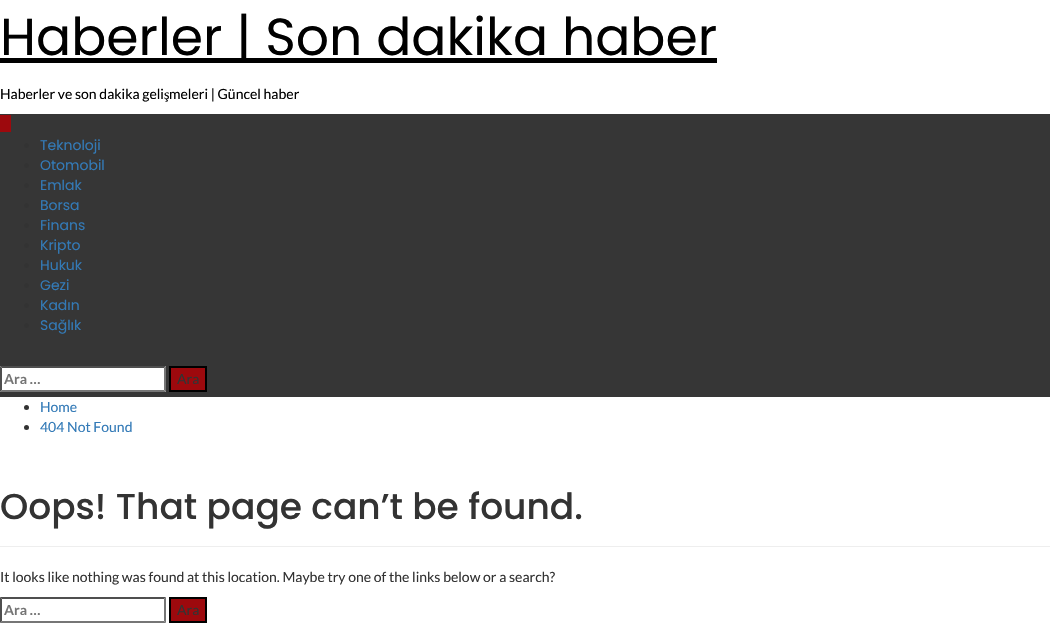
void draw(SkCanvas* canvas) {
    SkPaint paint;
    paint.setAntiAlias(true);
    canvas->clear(0xFFFFFFFF);
    paint.setColor(0xFF000000);
    canvas->drawRect(SkRect::MakeXYWH(0, 58, 717, 5), paint);
    SkFont font1(fontMgr->matchFamilyStyle("Poppins", SkFontStyle::Normal()), 52);
    font1.setSubpixel(true);
    canvas->drawString("Haberler | Son dakika haber", 0, 55, font1, paint);
    SkFont font2(fontMgr->matchFamilyStyle("Lato", SkFontStyle::Normal()), 14);
    font2.setSubpixel(true);
    canvas->drawString("Haberler ve son dakika geli", 0, 99, font2, paint);
    SkFont font3(fontMgr->matchFamilyStyle("Liberation Serif", SkFontStyle::Normal()), 14);
    font3.setSubpixel(true);
    canvas->drawString("ş", 164, 99, font3, paint);
    canvas->drawString("meleri | Güncel haber", 169, 99, font2, paint);
    paint.setColor(0xFF363636);
    canvas->drawRect(SkRect::MakeXYWH(0, 114, 1050, 283), paint);
    paint.setColor(0xFF9D090D);
    canvas->drawRect(SkRect::MakeXYWH(0, 115, 11, 17), paint);
    paint.setColor(0xFF333333);
    canvas->drawCircle(26.5f, 145.5f, 2.5f, paint);
    SkFont font4(fontMgr->matchFamilyStyle("Poppins", SkFontStyle::Normal()), 14);
    font4.setSubpixel(true);
    paint.setColor(0xFF337AB7);
    canvas->drawString("Teknoloji", 40, 150, font4, paint);
    paint.setColor(0xFF333333);
    canvas->drawCircle(26.5f, 165.5f, 2.5f, paint);
    paint.setColor(0xFF337AB7);
    canvas->drawString("Otomobil", 40, 170, font4, paint);
    paint.setColor(0xFF333333);
    canvas->drawCircle(26.5f, 185.5f, 2.5f, paint);
    paint.setColor(0xFF337AB7);
    canvas->drawString("Emlak", 40, 190, font4, paint);
    paint.setColor(0xFF333333);
    canvas->drawCircle(26.5f, 205.5f, 2.5f, paint);
    paint.setColor(0xFF337AB7);
    canvas->drawString("Borsa", 40, 210, font4, paint);
    paint.setColor(0xFF333333);
    canvas->drawCircle(26.5f, 225.5f, 2.5f, paint);
    paint.setColor(0xFF337AB7);
    canvas->drawString("Finans", 40, 230, font4, paint);
    paint.setColor(0xFF333333);
    canvas->drawCircle(26.5f, 245.5f, 2.5f, paint);
    paint.setColor(0xFF337AB7);
    canvas->drawString("Kripto", 40, 250, font4, paint);
    paint.setColor(0xFF333333);
    canvas->drawCircle(26.5f, 265.5f, 2.5f, paint);
    paint.setColor(0xFF337AB7);
    canvas->drawString("Hukuk", 40, 270, font4, paint);
    paint.setColor(0xFF333333);
    canvas->drawCircle(26.5f, 285.5f, 2.5f, paint);
    paint.setColor(0xFF337AB7);
    canvas->drawString("Gezi", 40, 290, font4, paint);
    paint.setColor(0xFF333333);
    canvas->drawCircle(26.5f, 305.5f, 2.5f, paint);
    paint.setColor(0xFF337AB7);
    canvas->drawString("Kadın", 40, 310, font4, paint);
    paint.setColor(0xFF333333);
    canvas->drawCircle(26.5f, 325.5f, 2.5f, paint);
    paint.setColor(0xFF337AB7);
    canvas->drawString("Sağlık", 40, 330, font4, paint);
    paint.setColor(0xFFFFFFFF);
    canvas->drawRect(SkRect::MakeXYWH(0, 366, 166, 26), paint);
    paint.setColor(0xFF4F4F4F);
    canvas->drawPath(SkPathBuilder().moveTo(0, 366).lineTo(166, 366).lineTo(164, 368).lineTo(2, 368).close().detach(), paint);
    paint.setColor(0xFF767676);
    canvas->drawPath(SkPathBuilder().moveTo(166, 366).lineTo(166, 392).lineTo(164, 390).lineTo(164, 368).close().detach(), paint);
    canvas->drawPath(SkPathBuilder().moveTo(166, 392).lineTo(0, 392).lineTo(2, 390).lineTo(164, 390).close().detach(), paint);
    paint.setColor(0xFF4F4F4F);
    canvas->drawPath(SkPathBuilder().moveTo(0, 392).lineTo(0, 366).lineTo(2, 368).lineTo(2, 390).close().detach(), paint);
    SkFont font5(fontMgr->matchFamilyStyle("Lato", SkFontStyle::Bold()), 14);
    font5.setSubpixel(true);
    paint.setColor(0xFF757575);
    canvas->drawString("Ara …", 4, 384, font5, paint);
    paint.setColor(0xFF9D090D);
    canvas->drawRect(SkRect::MakeXYWH(170, 367, 36, 24), paint);
    paint.setStyle(SkPaint::kStroke_Style);
    paint.setStrokeWidth(2);
    paint.setColor(0xFF000000);
    canvas->drawRect(SkRect::MakeXYWH(170, 367, 36, 24), paint);
    paint.setStyle(SkPaint::kFill_Style);
    paint.setColor(0xFF333333);
    canvas->drawString("Ara", 177, 384, font2, paint);
    canvas->drawCircle(26.5f, 407.5f, 2.5f, paint);
    paint.setColor(0xFF337AB7);
    canvas->drawString("Home", 40, 412, font2, paint);
    paint.setColor(0xFF333333);
    canvas->drawCircle(26.5f, 427.5f, 2.5f, paint);
    paint.setColor(0xFF337AB7);
    canvas->drawString("404 Not Found", 40, 432, font2, paint);
    paint.setColor(0xFFEEEEEE);
    canvas->drawRect(SkRect::MakeXYWH(0, 546, 1050, 1), paint);
    SkFont font6(fontMgr->matchFamilyStyle("Poppins", SkFontStyle(500, SkFontStyle::kNormal_Width, SkFontStyle::kUpright_Slant)), 36);
    font6.setSubpixel(true);
    paint.setColor(0xFF333333);
    canvas->drawString("Oops! That page can’t be found.", 0, 519, font6, paint);
    canvas->drawString("It looks like nothing was found at this location. Maybe try one of the links below or a search?", 0, 582, font2, paint);
    paint.setColor(0xFF4F4F4F);
    canvas->drawPath(SkPathBuilder().moveTo(0, 597).lineTo(166, 597).lineTo(164, 599).lineTo(2, 599).close().detach(), paint);
    paint.setColor(0xFF767676);
    canvas->drawPath(SkPathBuilder().moveTo(166, 597).lineTo(166, 623).lineTo(164, 621).lineTo(164, 599).close().detach(), paint);
    canvas->drawPath(SkPathBuilder().moveTo(166, 623).lineTo(0, 623).lineTo(2, 621).lineTo(164, 621).close().detach(), paint);
    paint.setColor(0xFF4F4F4F);
    canvas->drawPath(SkPathBuilder().moveTo(0, 623).lineTo(0, 597).lineTo(2, 599).lineTo(2, 621).close().detach(), paint);
    paint.setColor(0xFF757575);
    canvas->drawString("Ara …", 4, 615, font5, paint);
    paint.setColor(0xFF9D090D);
    canvas->drawRect(SkRect::MakeXYWH(170, 598, 36, 24), paint);
    paint.setStyle(SkPaint::kStroke_Style);
    paint.setColor(0xFF000000);
    canvas->drawRect(SkRect::MakeXYWH(170, 598, 36, 24), paint);
    paint.setStyle(SkPaint::kFill_Style);
    paint.setColor(0xFF333333);
    canvas->drawString("Ara", 177, 615, font2, paint);
}
